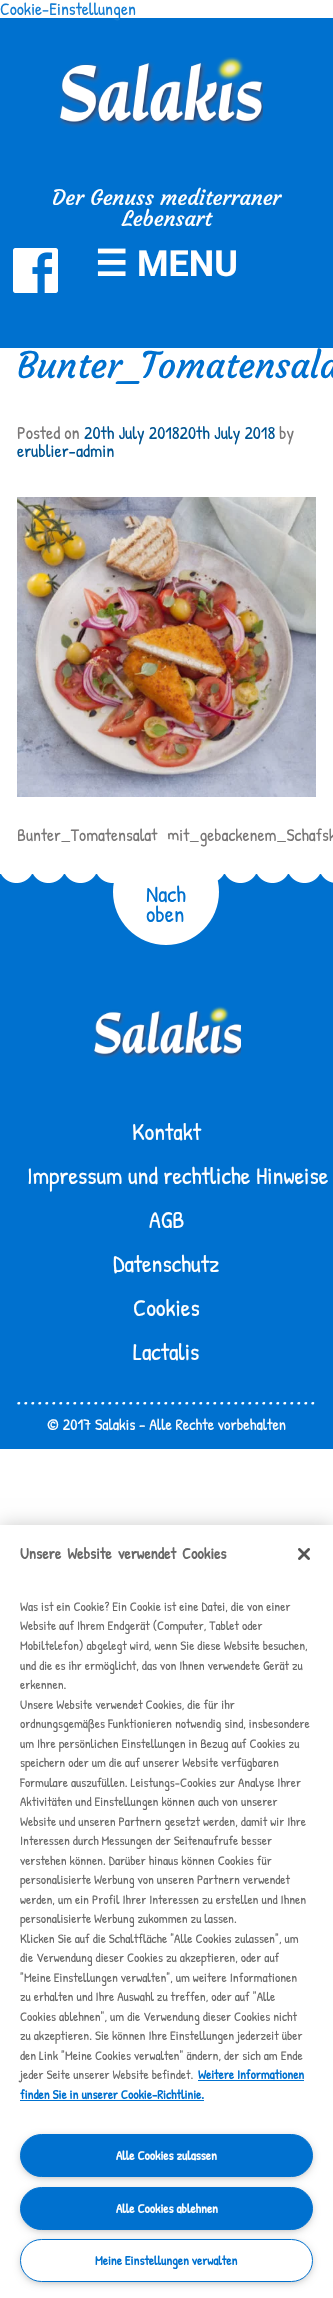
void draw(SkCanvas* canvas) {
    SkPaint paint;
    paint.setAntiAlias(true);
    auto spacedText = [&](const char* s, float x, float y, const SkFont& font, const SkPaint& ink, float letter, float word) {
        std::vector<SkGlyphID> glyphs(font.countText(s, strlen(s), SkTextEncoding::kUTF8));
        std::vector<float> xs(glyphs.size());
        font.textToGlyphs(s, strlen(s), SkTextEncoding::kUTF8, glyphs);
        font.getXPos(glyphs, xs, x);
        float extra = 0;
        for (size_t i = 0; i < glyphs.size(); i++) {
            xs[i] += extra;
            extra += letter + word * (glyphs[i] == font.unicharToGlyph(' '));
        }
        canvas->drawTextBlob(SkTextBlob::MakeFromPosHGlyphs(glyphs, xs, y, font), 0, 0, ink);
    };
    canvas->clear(0xFFFFFFFF);
    paint.setColor(0xFF0071CF);
    canvas->drawRect(SkRect::MakeXYWH(0, 18, 333, 330), paint);
    SkFont font1(fontMgr->matchFamilyStyle("Patrick Hand", SkFontStyle::Normal()), 17.6f);
    font1.setSubpixel(true);
    paint.setColor(0xFF147DD3);
    canvas->drawString("Cookie-Einstellungen", 0, 15, font1, paint);
    canvas->drawImageRect(SkImages::DeferredFromEncodedData(SkData::MakeFromFileName("img1.png")), SkRect::MakeXYWH(58, 57, 205, 71), SkSamplingOptions());
    SkFont font2(fontMgr->matchFamilyStyle("Courgette", SkFontStyle::Normal()), 21);
    font2.setSubpixel(true);
    paint.setColor(0xFFFFFFFF);
    canvas->drawString("Der Genuss mediterraner", 52, 205, font2, paint);
    canvas->drawString("Lebensart", 122, 226, font2, paint);
    canvas->drawImageRect(SkImages::DeferredFromEncodedData(SkData::MakeFromFileName("img2.png")), SkRect::MakeXYWH(13, 248, 45, 45), SkSamplingOptions());
    SkFont font3(fontMgr->matchFamilyStyle("DejaVu Sans", SkFontStyle::Bold()), 36);
    font3.setSubpixel(true);
    canvas->drawString("☰", 95, 276, font3, paint);
    SkFont font4(fontMgr->matchFamilyStyle("Roboto", SkFontStyle::Bold()), 36);
    font4.setSubpixel(true);
    canvas->drawString("MENU", 137, 276, font4, paint);
    SkFont font5(fontMgr->matchFamilyStyle("Courgette", SkFontStyle::Normal()), 36);
    font5.setSubpixel(true);
    paint.setColor(0xFF0071CF);
    canvas->drawString("Bunter_Tomatensala", 17, 378, font5, paint);
    SkFont font6(fontMgr->matchFamilyStyle("Patrick Hand", SkFontStyle::Normal()), 18);
    font6.setSubpixel(true);
    paint.setColor(0xFF797777);
    canvas->drawString("Posted on", 17, 439, font6, paint);
    paint.setColor(0xFF005492);
    canvas->drawString("20th July 201820th July 2018", 84, 439, font6, paint);
    paint.setColor(0xFF797777);
    canvas->drawString("by", 279, 439, font6, paint);
    paint.setColor(0xFF005492);
    canvas->drawString("erublier-admin", 17, 457, font6, paint);
    canvas->drawImageRect(SkImages::DeferredFromEncodedData(SkData::MakeFromFileName("img3.png")), SkRect::MakeXYWH(17, 497, 299, 300), SkSamplingOptions());
    paint.setColor(0xFF797777);
    canvas->drawString("Bunter_Tomatensalat_mit_gebackenem_Schafsk", 17, 841, font1, paint);
    paint.setColor(0xFF0071CF);
    canvas->drawRect(SkRect::MakeXYWH(0, 874, 333, 575), paint);
    canvas->drawImageRect(SkImages::DeferredFromEncodedData(SkData::MakeFromFileName("img4.png")), SkRect::MakeXYWH(1, 874, 332, 9), SkSamplingOptions());
    paint.setColor(0xFFFFFFFF);
    canvas->drawCircle(166, 892, 53, paint);
    SkFont font7(fontMgr->matchFamilyStyle("Patrick Hand", SkFontStyle::Normal()), 23);
    font7.setSubpixel(true);
    paint.setColor(0xFF0071CF);
    canvas->drawString("Nach", 146, 902, font7, paint);
    canvas->drawString("oben", 146, 922, font7, paint);
    canvas->drawImageRect(SkImages::DeferredFromEncodedData(SkData::MakeFromFileName("img5.png")), SkRect::MakeXYWH(17, 1402, 298, 3), SkSamplingOptions());
    canvas->drawImageRect(SkImages::DeferredFromEncodedData(SkData::MakeFromFileName("img6.png")), SkRect::MakeXYWH(93, 1006, 148, 52), SkSamplingOptions());
    SkFont font8(fontMgr->matchFamilyStyle("Patrick Hand", SkFontStyle::Normal()), 24);
    font8.setSubpixel(true);
    paint.setColor(0xFFFFFFFF);
    canvas->drawString("Kontakt", 132, 1140, font8, paint);
    canvas->drawString("Impressum und rechtliche Hinweise", 27, 1184, font8, paint);
    canvas->drawString("AGB", 149, 1228, font8, paint);
    canvas->drawString("Datenschutz", 113, 1272, font8, paint);
    canvas->drawString("Cookies", 133, 1316, font8, paint);
    canvas->drawString("Lactalis", 133, 1360, font8, paint);
    SkFont font9(fontMgr->matchFamilyStyle("Patrick Hand", SkFontStyle::Normal()), 16);
    font9.setSubpixel(true);
    canvas->drawString("© 2017 Salakis - Alle Rechte vorbehalten", 47, 1430, font9, paint);
    paint.setColor(0x33000000);
    paint.setMaskFilter(SkMaskFilter::MakeBlur(kNormal_SkBlurStyle, 9));
    canvas->drawRect(SkRect::MakeXYWH(0, 1525, 333, 773), paint);
    paint.setMaskFilter(nullptr);
    paint.setColor(0xFFFFFFFF);
    canvas->drawRect(SkRect::MakeXYWH(0, 1525, 333, 773), paint);
    SkFont font10(fontMgr->matchFamilyStyle("Patrick Hand", SkFontStyle::Bold()), 16);
    font10.setSubpixel(true);
    paint.setColor(0xFF696969);
    spacedText("Unsere Website verwendet Cookies", 20, 1559, font10, paint, 0, 2.5f);
    SkFont font11(fontMgr->matchFamilyStyle("Patrick Hand", SkFontStyle::Normal()), 13);
    font11.setSubpixel(true);
    canvas->drawString("Was ist ein Cookie? Ein Cookie ist eine Datei, die von einer", 20, 1611, font11, paint);
    canvas->drawString("Website auf Ihrem Endgerät (Computer, Tablet oder", 20, 1630, font11, paint);
    canvas->drawString("Mobiltelefon) abgelegt wird, wenn Sie diese Website besuchen,", 20, 1650, font11, paint);
    canvas->drawString("und die es ihr ermöglicht, das von Ihnen verwendete Gerät zu", 20, 1670, font11, paint);
    canvas->drawString("erkennen.", 20, 1689, font11, paint);
    canvas->drawString("Unsere Website verwendet Cookies, die für ihr", 20, 1709, font11, paint);
    canvas->drawString("ordnungsgemäßes Funktionieren notwendig sind, insbesondere", 20, 1728, font11, paint);
    canvas->drawString("um Ihre persönlichen Einstellungen in Bezug auf Cookies zu", 20, 1748, font11, paint);
    canvas->drawString("speichern oder um die auf unserer Website verfügbaren", 20, 1767, font11, paint);
    canvas->drawString("Formulare auszufüllen. Leistungs-Cookies zur Analyse Ihrer", 20, 1787, font11, paint);
    canvas->drawString("Aktivitäten und Einstellungen können auch von unserer", 20, 1806, font11, paint);
    canvas->drawString("Website und unseren Partnern gesetzt werden, damit wir Ihre", 20, 1826, font11, paint);
    canvas->drawString("Interessen durch Messungen der Seitenaufrufe besser", 20, 1845, font11, paint);
    canvas->drawString("verstehen können. Darüber hinaus können Cookies für", 20, 1865, font11, paint);
    canvas->drawString("personalisierte Werbung von unseren Partnern verwendet", 20, 1884, font11, paint);
    canvas->drawString("werden, um ein Profil Ihrer Interessen zu erstellen und Ihnen", 20, 1904, font11, paint);
    canvas->drawString("personalisierte Werbung zukommen zu lassen.", 20, 1923, font11, paint);
    canvas->drawString("Klicken Sie auf die Schaltfläche \"Alle Cookies zulassen\", um", 20, 1943, font11, paint);
    canvas->drawString("die Verwendung dieser Cookies zu akzeptieren, oder auf", 20, 1962, font11, paint);
    canvas->drawString("\"Meine Einstellungen verwalten\", um weitere Informationen", 20, 1982, font11, paint);
    canvas->drawString("zu erhalten und Ihre Auswahl zu treffen, oder auf \"Alle", 20, 2001, font11, paint);
    canvas->drawString("Cookies ablehnen\", um die Verwendung dieser Cookies nicht", 20, 2021, font11, paint);
    canvas->drawString("zu akzeptieren. Sie können Ihre Einstellungen jederzeit über", 20, 2040, font11, paint);
    canvas->drawString("den Link \"Meine Cookies verwalten\" ändern, der sich am Ende", 20, 2060, font11, paint);
    canvas->drawString("jeder Seite unserer Website befindet.", 20, 2079, font11, paint);
    SkFont font12(fontMgr->matchFamilyStyle("Patrick Hand", SkFontStyle::Bold()), 13);
    font12.setSubpixel(true);
    paint.setColor(0xFF0071CF);
    canvas->drawString("Weitere Informationen", 198, 2079, font12, paint);
    canvas->drawRect(SkRect::MakeXYWH(198, 2080, 106, 1), paint);
    canvas->drawString("finden Sie in unserer Cookie-Richtlinie.", 20, 2099, font12, paint);
    canvas->drawRect(SkRect::MakeXYWH(20, 2100, 184, 1), paint);
    paint.setColor(0xFF999999);
    paint.setMaskFilter(SkMaskFilter::MakeBlur(kNormal_SkBlurStyle, 5));
    canvas->drawRoundRect(SkRect::MakeXYWH(23, 2139, 287, 37), 18.5f, 18.5f, paint);
    paint.setMaskFilter(nullptr);
    paint.setColor(0xFF0071CF);
    canvas->drawRoundRect(SkRect::MakeXYWH(20.5f, 2134.5f, 292, 42), 21, 21, paint);
    paint.setStyle(SkPaint::kStroke_Style);
    paint.setStrokeWidth(1);
    canvas->drawRoundRect(SkRect::MakeXYWH(20.5f, 2134.5f, 292, 42), 21, 21, paint);
    paint.setStyle(SkPaint::kFill_Style);
    paint.setColor(0xFFFFFFFF);
    canvas->drawString("Alle Cookies zulassen", 116, 2160, font12, paint);
    paint.setColor(0xFF999999);
    paint.setMaskFilter(SkMaskFilter::MakeBlur(kNormal_SkBlurStyle, 5));
    canvas->drawRoundRect(SkRect::MakeXYWH(23, 2192, 287, 37), 18.5f, 18.5f, paint);
    paint.setMaskFilter(nullptr);
    paint.setColor(0xFF0071CF);
    canvas->drawRoundRect(SkRect::MakeXYWH(20.5f, 2187.5f, 292, 42), 21, 21, paint);
    paint.setStyle(SkPaint::kStroke_Style);
    canvas->drawRoundRect(SkRect::MakeXYWH(20.5f, 2187.5f, 292, 42), 21, 21, paint);
    paint.setStyle(SkPaint::kFill_Style);
    paint.setColor(0xFFFFFFFF);
    canvas->drawString("Alle Cookies ablehnen", 116, 2213, font12, paint);
    paint.setColor(0xFF999999);
    paint.setMaskFilter(SkMaskFilter::MakeBlur(kNormal_SkBlurStyle, 5));
    canvas->drawRoundRect(SkRect::MakeXYWH(23, 2244, 287, 37), 18.5f, 18.5f, paint);
    paint.setMaskFilter(nullptr);
    paint.setColor(0xFFFFFFFF);
    canvas->drawRoundRect(SkRect::MakeXYWH(20.5f, 2239.5f, 292, 42), 21, 21, paint);
    paint.setStyle(SkPaint::kStroke_Style);
    paint.setColor(0xFF0071CF);
    canvas->drawRoundRect(SkRect::MakeXYWH(20.5f, 2239.5f, 292, 42), 21, 21, paint);
    paint.setStyle(SkPaint::kFill_Style);
    canvas->drawString("Meine Einstellungen verwalten", 95, 2265, font12, paint);
    canvas->drawImageRect(SkImages::DeferredFromEncodedData(SkData::MakeFromFileName("img7.png")), SkRect::MakeXYWH(298, 1548, 12, 12), SkSamplingOptions());
}
